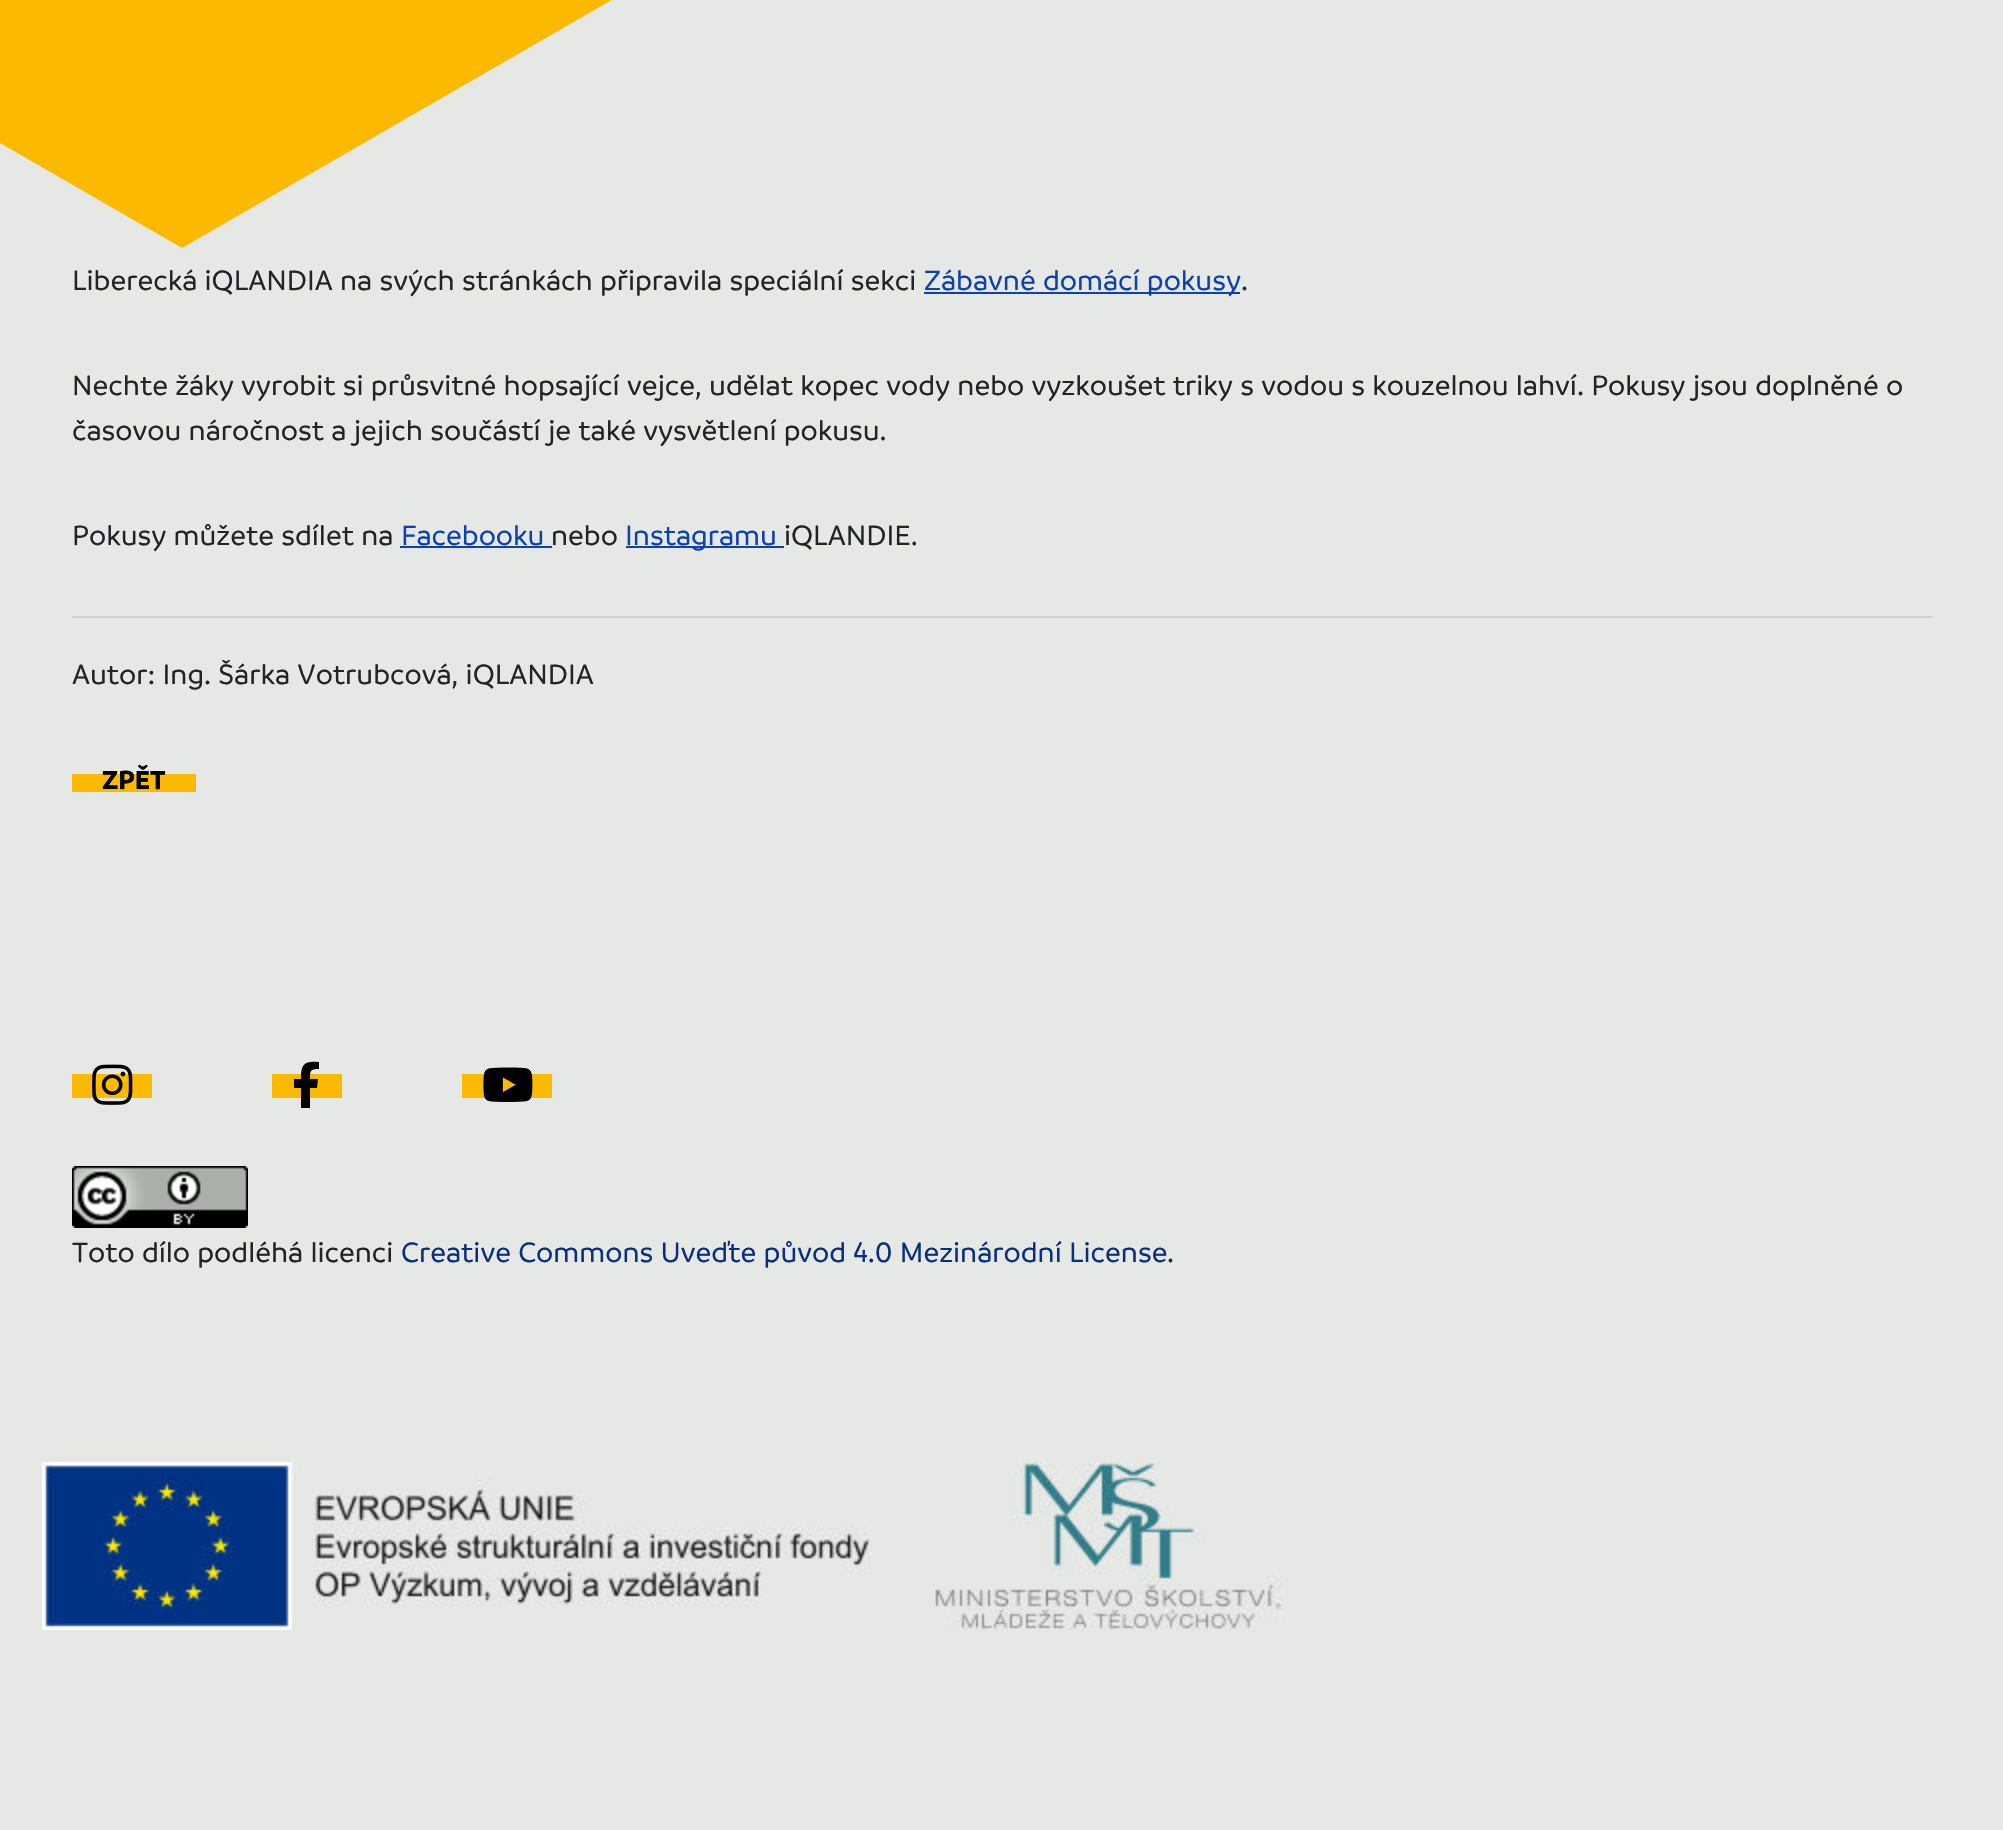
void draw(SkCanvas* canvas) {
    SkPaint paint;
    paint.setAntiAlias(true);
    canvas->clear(0xFFE6E8E6);
    paint.setColor(0xFFFBBA00);
    canvas->drawPath(SkPathBuilder(SkPathFillType::kEvenOdd).moveTo(182, -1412).lineTo(901, -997).lineTo(901, -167).lineTo(182, 248).lineTo(-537, -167).lineTo(-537, -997).close().detach(), paint);
    SkFont font1(fontMgr->matchFamilyStyle("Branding", SkFontStyle(500, SkFontStyle::kNormal_Width, SkFontStyle::kUpright_Slant)), 30);
    font1.setSubpixel(true);
    paint.setColor(0xFF212529);
    canvas->drawString("Liberecká iQLANDIA na svých stránkách připravila speciální sekci", 72, 290, font1, paint);
    paint.setColor(0xFF0C41AF);
    canvas->drawRect(SkRect::MakeXYWH(924, 292, 316, 2), paint);
    canvas->drawString("Zábavné domácí pokusy", 924, 290, font1, paint);
    paint.setColor(0xFF212529);
    canvas->drawString(".", 1241, 290, font1, paint);
    canvas->drawString("Nechte žáky vyrobit si průsvitné hopsající vejce, udělat kopec vody nebo vyzkoušet triky s vodou s kouzelnou lahví. Pokusy jsou doplněné o", 72, 395, font1, paint);
    canvas->drawString("časovou náročnost a jejich součástí je také vysvětlení pokusu.", 72, 440, font1, paint);
    canvas->drawString("Pokusy můžete sdílet na", 72, 545, font1, paint);
    paint.setColor(0xFF0C41AF);
    canvas->drawString("Facebooku", 401, 545, font1, paint);
    canvas->drawRect(SkRect::MakeXYWH(400, 546, 152, 2), paint);
    paint.setColor(0xFF212529);
    canvas->drawString("nebo", 551, 545, font1, paint);
    paint.setColor(0xFF0C41AF);
    canvas->drawRect(SkRect::MakeXYWH(626, 546, 158, 2), paint);
    canvas->drawString("Instagramu", 625, 545, font1, paint);
    paint.setColor(0xFF212529);
    canvas->drawString("iQLANDIE.", 784, 545, font1, paint);
    paint.setColor(0xFFCFD1CF);
    canvas->drawRect(SkRect::MakeXYWH(72, 616, 1860, 2), paint);
    paint.setColor(0xFF212529);
    canvas->drawString("Autor: Ing. Šárka Votrubcová, iQLANDIA", 72, 684, font1, paint);
    {
        const SkColor colors[] = {0xFFE6E8E6, 0xFFE6E8E6, 0xFFFBBA00, 0xFFFBBA00, 0xFFE6E8E6, 0xFFE6E8E6};
        const float stops[] = {0, 0.42f, 0.42f, 0.85f, 0.85f, 1};
        const SkPoint ends[] = {{134, 756}, {134, 798}};
        paint.setShader(SkGradientShader::MakeLinear(ends, colors, stops, 6, SkTileMode::kClamp));
        paint.setAlpha(255);
    }
    canvas->drawRect(SkRect::MakeXYWH(72, 774, 124, 18), paint);
    SkFont font2(fontMgr->matchFamilyStyle("Branding", SkFontStyle::Bold()), 28);
    font2.setSubpixel(true);
    paint.setShader(nullptr);
    paint.setColor(0xFF000000);
    canvas->drawString("ZPĚT", 102, 789, font2, paint);
    {
        const SkColor colors[] = {0xFFE6E8E6, 0xFFE6E8E6, 0xFFFBBA00, 0xFFFBBA00, 0xFFE6E8E6, 0xFFE6E8E6};
        const float stops[] = {0, 0.32f, 0.32f, 0.68f, 0.68f, 1};
        const SkPoint ends[] = {{112, 1052}, {112, 1120}};
        paint.setShader(SkGradientShader::MakeLinear(ends, colors, stops, 6, SkTileMode::kClamp));
        paint.setAlpha(255);
    }
    canvas->drawRect(SkRect::MakeXYWH(72, 1074, 80, 24), paint);
    canvas->drawImageRect(SkImages::DeferredFromEncodedData(SkData::MakeFromFileName("img1.png")), SkRect::MakeXYWH(92, 1064, 41, 41), SkSamplingOptions());
    {
        const SkColor colors[] = {0xFFE6E8E6, 0xFFE6E8E6, 0xFFFBBA00, 0xFFFBBA00, 0xFFE6E8E6, 0xFFE6E8E6};
        const float stops[] = {0, 0.32f, 0.32f, 0.68f, 0.68f, 1};
        const SkPoint ends[] = {{307, 1052}, {307, 1120}};
        paint.setShader(SkGradientShader::MakeLinear(ends, colors, stops, 6, SkTileMode::kClamp));
        paint.setAlpha(255);
    }
    canvas->drawRect(SkRect::MakeXYWH(272, 1074, 70, 24), paint);
    paint.setShader(nullptr);
    paint.setColor(0xFF000000);
    canvas->drawPath(SkPathBuilder().moveTo(317, 1088).lineTo(310, 1088).lineTo(310, 1108).lineTo(301, 1108).lineTo(301, 1088).lineTo(294, 1088).lineTo(294, 1079).lineTo(301, 1079).cubicTo(301, 1064, 304, 1061, 319, 1062).lineTo(319, 1069).cubicTo(310, 1069, 310, 1071, 310, 1079).lineTo(318, 1079).close().detach(), paint);
    {
        const SkColor colors[] = {0xFFE6E8E6, 0xFFE6E8E6, 0xFFFBBA00, 0xFFFBBA00, 0xFFE6E8E6, 0xFFE6E8E6};
        const float stops[] = {0, 0.32f, 0.32f, 0.68f, 0.68f, 1};
        const SkPoint ends[] = {{507, 1052}, {507, 1120}};
        paint.setShader(SkGradientShader::MakeLinear(ends, colors, stops, 6, SkTileMode::kClamp));
        paint.setAlpha(255);
    }
    canvas->drawRect(SkRect::MakeXYWH(462, 1074, 90, 24), paint);
    canvas->drawImageRect(SkImages::DeferredFromEncodedData(SkData::MakeFromFileName("img2.png")), SkRect::MakeXYWH(483, 1067, 50, 35), SkSamplingOptions());
    canvas->drawImageRect(SkImages::DeferredFromEncodedData(SkData::MakeFromFileName("img3.png")), SkRect::MakeXYWH(72, 1166, 176, 62), SkSamplingOptions());
    paint.setShader(nullptr);
    paint.setColor(0xFF212529);
    canvas->drawString("Toto dílo podléhá licenci", 72, 1262, font1, paint);
    paint.setColor(0xFF092F7F);
    canvas->drawString("Creative Commons Uveďte původ 4.0 Mezinárodní License", 401, 1262, font1, paint);
    paint.setColor(0xFF212529);
    canvas->drawString(".", 1167, 1262, font1, paint);
    canvas->drawImageRect(SkImages::DeferredFromEncodedData(SkData::MakeFromFileName("img4.png")), SkRect::MakeXYWH(42, 1462, 830, 168), SkSamplingOptions());
    canvas->drawImageRect(SkImages::DeferredFromEncodedData(SkData::MakeFromFileName("img5.png")), SkRect::MakeXYWH(934, 1462, 348, 168), SkSamplingOptions());
}
